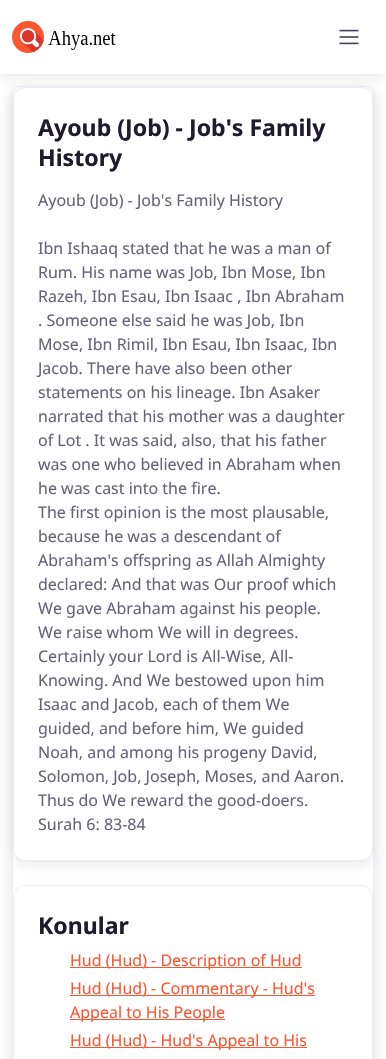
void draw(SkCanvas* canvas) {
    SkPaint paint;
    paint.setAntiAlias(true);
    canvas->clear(0xFFFFFFFF);
    paint.setColor(0x1F1F1B2D);
    paint.setMaskFilter(SkMaskFilter::MakeBlur(kNormal_SkBlurStyle, 8));
    canvas->drawRoundRect(SkRect::MakeXYWH(12, 90, 362, 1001), 8, 8, paint);
    paint.setMaskFilter(nullptr);
    paint.setColor(0xFFFFFFFF);
    canvas->drawRoundRect(SkRect::MakeXYWH(12.5f, 86.5f, 361, 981), 7.5f, 7.5f, paint);
    paint.setStyle(SkPaint::kStroke_Style);
    paint.setStrokeWidth(1);
    paint.setColor(0xFFEFECF3);
    canvas->drawRoundRect(SkRect::MakeXYWH(12.5f, 86.5f, 361, 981), 7.5f, 7.5f, paint);
    paint.setStyle(SkPaint::kFill_Style);
    paint.setColor(0x141F1B2D);
    paint.setMaskFilter(SkMaskFilter::MakeBlur(kNormal_SkBlurStyle, 6));
    canvas->drawRoundRect(SkRect::MakeXYWH(13, 91, 360, 774), 12, 12, paint);
    paint.setMaskFilter(nullptr);
    paint.setMaskFilter(SkMaskFilter::MakeBlur(kNormal_SkBlurStyle, 1));
    canvas->drawRoundRect(SkRect::MakeXYWH(15, 91, 356, 770), 10, 10, paint);
    paint.setMaskFilter(nullptr);
    paint.setColor(0xFFFFFFFF);
    canvas->drawRoundRect(SkRect::MakeXYWH(13.5f, 87.5f, 359, 773), 11.5f, 11.5f, paint);
    paint.setStyle(SkPaint::kStroke_Style);
    paint.setColor(0xFFEFECF3);
    canvas->drawRoundRect(SkRect::MakeXYWH(13.5f, 87.5f, 359, 773), 11.5f, 11.5f, paint);
    paint.setStyle(SkPaint::kFill_Style);
    paint.setColor(0x141F1B2D);
    paint.setMaskFilter(SkMaskFilter::MakeBlur(kNormal_SkBlurStyle, 6));
    canvas->drawRect(SkRect::MakeXYWH(0, 4, 386, 74), paint);
    paint.setMaskFilter(nullptr);
    paint.setMaskFilter(SkMaskFilter::MakeBlur(kNormal_SkBlurStyle, 1));
    canvas->drawRect(SkRect::MakeXYWH(2, 4, 382, 70), paint);
    paint.setMaskFilter(nullptr);
    paint.setColor(0xFFFFFFFF);
    canvas->drawRect(SkRect::MakeXYWH(0, 0, 386, 74), paint);
    canvas->drawImageRect(SkImages::DeferredFromEncodedData(SkData::MakeFromFileName("img1.png")), SkRect::MakeXYWH(12, 21, 104, 32), SkSamplingOptions());
    canvas->drawImageRect(SkImages::DeferredFromEncodedData(SkData::MakeFromFileName("img2.png")), SkRect::MakeXYWH(339, 29, 20, 16), SkSamplingOptions());
    SkFont font1(fontMgr->matchFamilyStyle("Noto Sans", SkFontStyle::Bold()), 23.1f);
    font1.setSubpixel(true);
    paint.setColor(0xFF1F1B2D);
    canvas->drawString("Ayoub (Job) - Job's Family", 38, 136, font1, paint);
    canvas->drawString("History", 38, 166, font1, paint);
    SkFont font2(fontMgr->matchFamilyStyle("Noto Sans", SkFontStyle::Normal()), 16);
    font2.setSubpixel(true);
    paint.setColor(0xFF666276);
    canvas->drawString("Ayoub (Job) - Job's Family History", 38, 206, font2, paint);
    canvas->drawString("Ibn Ishaaq stated that he was a man of", 38, 254, font2, paint);
    canvas->drawString("Rum. His name was Job, Ibn Mose, Ibn", 38, 278, font2, paint);
    canvas->drawString("Razeh, Ibn Esau, Ibn Isaac , Ibn Abraham", 38, 302, font2, paint);
    canvas->drawString(". Someone else said he was Job, Ibn", 38, 326, font2, paint);
    canvas->drawString("Mose, Ibn Rimil, Ibn Esau, Ibn Isaac, Ibn", 38, 350, font2, paint);
    canvas->drawString("Jacob. There have also been other", 38, 374, font2, paint);
    canvas->drawString("statements on his lineage. Ibn Asaker", 38, 398, font2, paint);
    canvas->drawString("narrated that his mother was a daughter", 38, 422, font2, paint);
    canvas->drawString("of Lot . It was said, also, that his father", 38, 446, font2, paint);
    canvas->drawString("was one who believed in Abraham when", 38, 470, font2, paint);
    canvas->drawString("he was cast into the fire.", 38, 494, font2, paint);
    canvas->drawString("The first opinion is the most plausable,", 38, 518, font2, paint);
    canvas->drawString("because he was a descendant of", 38, 542, font2, paint);
    canvas->drawString("Abraham's offspring as Allah Almighty", 38, 566, font2, paint);
    canvas->drawString("declared: And that was Our proof which", 38, 590, font2, paint);
    canvas->drawString("We gave Abraham against his people.", 38, 614, font2, paint);
    canvas->drawString("We raise whom We will in degrees.", 38, 638, font2, paint);
    canvas->drawString("Certainly your Lord is All-Wise, All-", 38, 662, font2, paint);
    canvas->drawString("Knowing. And We bestowed upon him", 38, 686, font2, paint);
    canvas->drawString("Isaac and Jacob, each of them We", 38, 710, font2, paint);
    canvas->drawString("guided, and before him, We guided", 38, 734, font2, paint);
    canvas->drawString("Noah, and among his progeny David,", 38, 758, font2, paint);
    canvas->drawString("Solomon, Job, Joseph, Moses, and Aaron.", 38, 782, font2, paint);
    canvas->drawString("Thus do We reward the good-doers.", 38, 806, font2, paint);
    canvas->drawString("Surah 6: 83-84", 38, 830, font2, paint);
    paint.setStyle(SkPaint::kStroke_Style);
    paint.setColor(0xFFEFECF3);
    canvas->drawRoundRect(SkRect::MakeXYWH(13.5f, 885.5f, 359, 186), 11.5f, 11.5f, paint);
    paint.setStyle(SkPaint::kFill_Style);
    paint.setColor(0xFF1F1B2D);
    canvas->drawString("Konular", 38, 934, font1, paint);
    paint.setColor(0xFFFD5631);
    canvas->drawRect(SkRect::MakeXYWH(70, 967, 232, 1), paint);
    canvas->drawString("Hud (Hud) - Description of Hud", 70, 966, font2, paint);
    canvas->drawRect(SkRect::MakeXYWH(70, 995, 245, 1), paint);
    canvas->drawString("Hud (Hud) - Commentary - Hud's", 70, 994, font2, paint);
    canvas->drawRect(SkRect::MakeXYWH(70, 1019, 155, 1), paint);
    canvas->drawString("Appeal to His People", 70, 1018, font2, paint);
    canvas->drawRect(SkRect::MakeXYWH(70, 1047, 237, 1), paint);
    canvas->drawString("Hud (Hud) - Hud's Appeal to His", 70, 1046, font2, paint);
}
